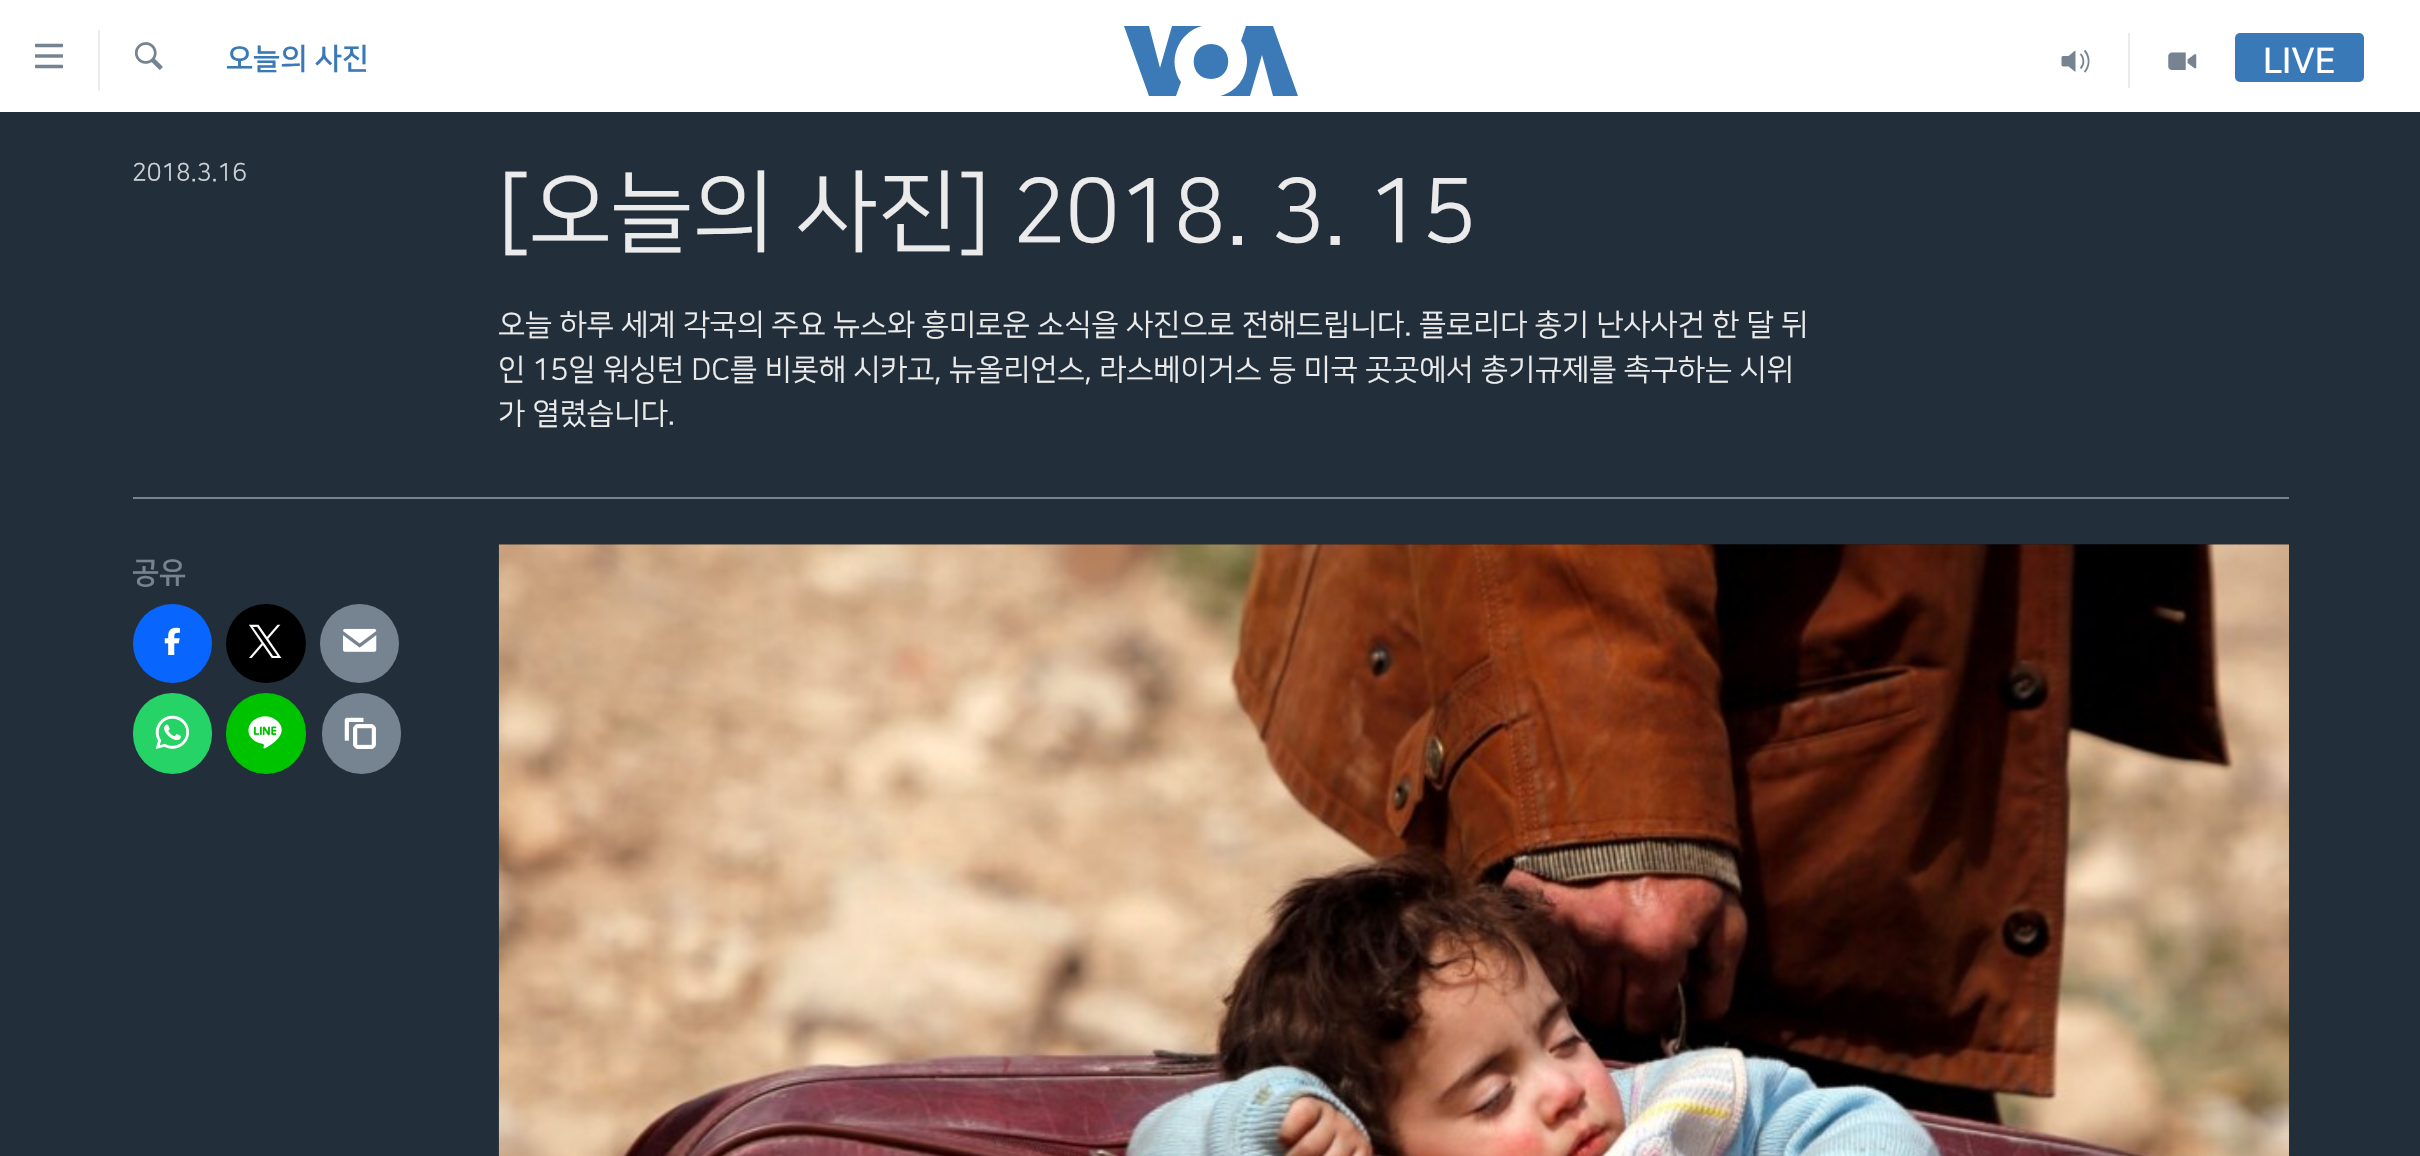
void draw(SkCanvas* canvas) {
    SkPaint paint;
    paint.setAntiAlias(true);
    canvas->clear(0xFFFFFFFF);
    canvas->drawImageRect(SkImages::DeferredFromEncodedData(SkData::MakeFromFileName("img1.png")), SkRect::MakeXYWH(35, 43, 28, 26), SkSamplingOptions());
    paint.setColor(0xFFEBEBEB);
    canvas->drawRect(SkRect::MakeXYWH(98, 30, 2, 61), paint);
    canvas->drawImageRect(SkImages::DeferredFromEncodedData(SkData::MakeFromFileName("img2.png")), SkRect::MakeXYWH(134, 42, 29, 28), SkSamplingOptions());
    SkFont font1(fontMgr->matchFamilyStyle("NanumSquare", SkFontStyle::Bold()), 29.75f);
    font1.setSubpixel(true);
    paint.setColor(0xFF3A79B7);
    canvas->drawString("오늘의 사진", 226, 68, font1, paint);
    paint.setColor(0xFF3B79B7);
    canvas->drawPath(SkPathBuilder().moveTo(1181, 82).lineTo(1176, 96).lineTo(1149, 96).lineTo(1124, 26).lineTo(1149, 26).lineTo(1160, 68).lineTo(1172, 26).lineTo(1202, 26).cubicTo(1177, 33, 1167, 62, 1181, 82).close().moveTo(1211, 44).cubicTo(1188, 44, 1188, 79, 1211, 79).cubicTo(1234, 79, 1234, 44, 1211, 44).close().moveTo(1247, 61).cubicTo(1247, 78, 1236, 92, 1220, 96).lineTo(1250, 96).lineTo(1262, 55).lineTo(1273, 96).lineTo(1298, 96).lineTo(1273, 26).lineTo(1246, 26).lineTo(1241, 41).cubicTo(1245, 46, 1247, 54, 1247, 61).close().detach(), paint);
    paint.setColor(0xFFEBEBEB);
    canvas->drawRect(SkRect::MakeXYWH(2128, 33, 2, 55), paint);
    canvas->drawImageRect(SkImages::DeferredFromEncodedData(SkData::MakeFromFileName("img3.png")), SkRect::MakeXYWH(2061, 49, 29, 24), SkSamplingOptions());
    canvas->drawImageRect(SkImages::DeferredFromEncodedData(SkData::MakeFromFileName("img4.png")), SkRect::MakeXYWH(2168, 52, 29, 18), SkSamplingOptions());
    paint.setColor(0xFF3A79B7);
    canvas->drawRoundRect(SkRect::MakeXYWH(2235, 33, 129, 49), 5, 5, paint);
    SkFont font2(fontMgr->matchFamilyStyle("NanumSquare", SkFontStyle::Bold()), 35);
    font2.setSubpixel(true);
    paint.setColor(0xFFFFFFFF);
    canvas->drawString("LIVE", 2263, 72, font2, paint);
    paint.setColor(0xFF222F3A);
    canvas->drawRect(SkRect::MakeXYWH(0, 112, 2420, 1044), paint);
    SkFont font3(fontMgr->matchFamilyStyle("NanumSquare", SkFontStyle::Normal()), 24.5f);
    font3.setSubpixel(true);
    paint.setColor(0xFFCBD1D6);
    canvas->drawString("2018.3.16", 132, 180, font3, paint);
    SkFont font4(fontMgr->matchFamilyStyle("NanumSquare", SkFontStyle::Normal()), 89.25f);
    font4.setSubpixel(true);
    paint.setColor(0xFFEBEBEB);
    canvas->drawString("[오늘의 사진] 2018. 3. 15", 498, 240, font4, paint);
    SkFont font5(fontMgr->matchFamilyStyle("NanumSquare", SkFontStyle::Normal()), 29.75f);
    font5.setSubpixel(true);
    canvas->drawString("오늘 하루 세계 각국의 주요 뉴스와 흥미로운 소식을 사진으로 전해드립니다. 플로리다 총기 난사사건 한 달 뒤", 498, 334, font5, paint);
    canvas->drawString("인 15일 워싱턴 DC를 비롯해 시카고, 뉴올리언스, 라스베이거스 등 미국 곳곳에서 총기규제를 촉구하는 시위", 498, 379, font5, paint);
    canvas->drawString("가 열렸습니다.", 498, 423, font5, paint);
    paint.setColor(0xFF768492);
    canvas->drawRect(SkRect::MakeXYWH(133, 497, 2156, 2), paint);
    canvas->drawString("공유", 132, 582, font1, paint);
    paint.setColor(0xFF0866FF);
    canvas->drawCircle(172.5f, 643.5f, 39.5f, paint);
    canvas->drawImageRect(SkImages::DeferredFromEncodedData(SkData::MakeFromFileName("img5.png")), SkRect::MakeXYWH(164, 627, 16, 28), SkSamplingOptions());
    paint.setColor(0xFF000000);
    canvas->drawRoundRect(SkRect::MakeXYWH(226, 604, 80, 79), 39.5f, 39.5f, paint);
    canvas->drawImageRect(SkImages::DeferredFromEncodedData(SkData::MakeFromFileName("img6.png")), SkRect::MakeXYWH(249, 624, 33, 34), SkSamplingOptions());
    paint.setColor(0xFF768492);
    canvas->drawCircle(359.5f, 643.5f, 39.5f, paint);
    canvas->drawImageRect(SkImages::DeferredFromEncodedData(SkData::MakeFromFileName("img7.png")), SkRect::MakeXYWH(343, 628, 34, 24), SkSamplingOptions());
    paint.setColor(0xFF25D366);
    canvas->drawRoundRect(SkRect::MakeXYWH(133, 693, 79, 81), 39.5f, 39.5f, paint);
    canvas->drawImageRect(SkImages::DeferredFromEncodedData(SkData::MakeFromFileName("img8.png")), SkRect::MakeXYWH(155, 715, 34, 34), SkSamplingOptions());
    paint.setColor(0xFF00C300);
    canvas->drawRoundRect(SkRect::MakeXYWH(226, 693, 80, 81), 40, 40, paint);
    canvas->drawImageRect(SkImages::DeferredFromEncodedData(SkData::MakeFromFileName("img9.png")), SkRect::MakeXYWH(248, 716, 34, 33), SkSamplingOptions());
    paint.setColor(0xFF768492);
    canvas->drawRoundRect(SkRect::MakeXYWH(322, 693, 79, 81), 39.5f, 39.5f, paint);
    canvas->drawImageRect(SkImages::DeferredFromEncodedData(SkData::MakeFromFileName("img10.png")), SkRect::MakeXYWH(344, 717, 32, 32), SkSamplingOptions());
    paint.setColor(0xFF151D23);
    canvas->drawRect(SkRect::MakeXYWH(499, 544, 1790, 1), paint);
    canvas->drawImageRect(SkImages::DeferredFromEncodedData(SkData::MakeFromFileName("img11.png")), SkRect::MakeXYWH(498, 544, 1791, 612), SkSamplingOptions());
}
